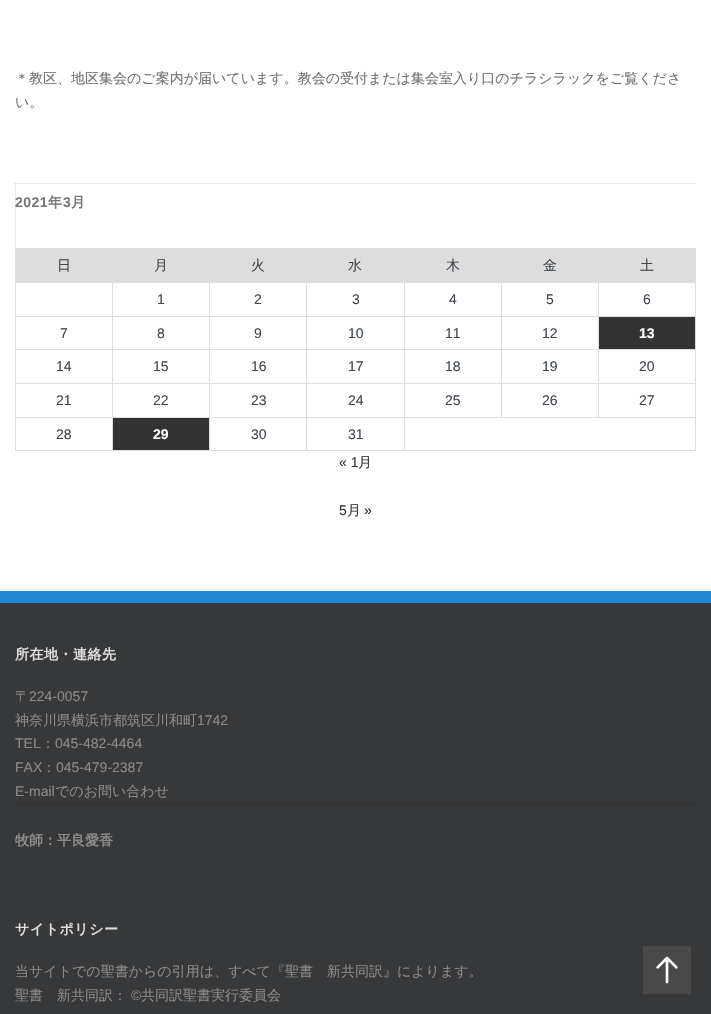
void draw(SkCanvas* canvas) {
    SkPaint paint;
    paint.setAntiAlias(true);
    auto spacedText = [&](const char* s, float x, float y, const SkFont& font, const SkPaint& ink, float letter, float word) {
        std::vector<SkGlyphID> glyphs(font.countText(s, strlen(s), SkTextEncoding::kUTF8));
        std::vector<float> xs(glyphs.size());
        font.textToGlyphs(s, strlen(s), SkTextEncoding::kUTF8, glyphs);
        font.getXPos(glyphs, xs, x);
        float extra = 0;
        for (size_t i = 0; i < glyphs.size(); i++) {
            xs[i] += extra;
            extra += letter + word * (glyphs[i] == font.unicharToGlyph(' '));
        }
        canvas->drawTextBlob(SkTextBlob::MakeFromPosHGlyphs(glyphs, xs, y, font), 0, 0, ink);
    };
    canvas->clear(0xFFFFFFFF);
    paint.setColor(0xFFEBEBEB);
    canvas->drawRect(SkRect::MakeXYWH(15, 183, 1, 65), paint);
    SkFont font1(fontMgr->matchFamilyStyle("WenQuanYi Zen Hei", SkFontStyle(500, SkFontStyle::kNormal_Width, SkFontStyle::kUpright_Slant)), 14);
    font1.setSubpixel(true);
    paint.setColor(0xFF707070);
    canvas->drawString("＊教区、地区集会のご案内が届いています。教会の受付または集会室入り口のチラシラックをご覧くださ", 15, 83, font1, paint);
    canvas->drawString("い。", 15, 107, font1, paint);
    paint.setColor(0xFFEBEBEB);
    canvas->drawRect(SkRect::MakeXYWH(15, 183, 681, 1), paint);
    paint.setColor(0xFFD9D9D9);
    canvas->drawRect(SkRect::MakeXYWH(15, 183, 1, 1), paint);
    SkFont font2(fontMgr->matchFamilyStyle("Liberation Sans", SkFontStyle::Bold()), 14);
    font2.setSubpixel(true);
    paint.setColor(0xFF777777);
    spacedText("2021", 15, 207, font2, paint, 0.5f, 0);
    SkFont font3(fontMgr->matchFamilyStyle("WenQuanYi Zen Hei", SkFontStyle::Bold()), 14);
    font3.setSubpixel(true);
    spacedText("年", 48, 207, font3, paint, 0.5f, 0);
    spacedText("3", 63, 207, font2, paint, 0.5f, 0);
    spacedText("月", 71, 207, font3, paint, 0.5f, 0);
    paint.setColor(0xFFDDDDDD);
    canvas->drawRect(SkRect::MakeXYWH(16, 249, 680, 33), paint);
    canvas->drawRect(SkRect::MakeXYWH(15, 248, 681, 1), paint);
    canvas->drawRect(SkRect::MakeXYWH(598, 282, 98, 1), paint);
    canvas->drawRect(SkRect::MakeXYWH(598, 316, 98, 1), paint);
    canvas->drawRect(SkRect::MakeXYWH(598, 349, 98, 1), paint);
    canvas->drawRect(SkRect::MakeXYWH(598, 383, 98, 1), paint);
    canvas->drawRect(SkRect::MakeXYWH(404, 417, 292, 1), paint);
    canvas->drawRect(SkRect::MakeXYWH(598, 383, 1, 35), paint);
    canvas->drawRect(SkRect::MakeXYWH(501, 383, 98, 1), paint);
    canvas->drawRect(SkRect::MakeXYWH(598, 349, 1, 35), paint);
    canvas->drawRect(SkRect::MakeXYWH(501, 349, 98, 1), paint);
    canvas->drawRect(SkRect::MakeXYWH(598, 316, 1, 34), paint);
    canvas->drawRect(SkRect::MakeXYWH(501, 316, 98, 1), paint);
    canvas->drawRect(SkRect::MakeXYWH(598, 282, 1, 35), paint);
    canvas->drawRect(SkRect::MakeXYWH(501, 282, 98, 1), paint);
    canvas->drawRect(SkRect::MakeXYWH(501, 383, 1, 35), paint);
    canvas->drawRect(SkRect::MakeXYWH(404, 383, 98, 1), paint);
    canvas->drawRect(SkRect::MakeXYWH(501, 349, 1, 35), paint);
    canvas->drawRect(SkRect::MakeXYWH(404, 349, 98, 1), paint);
    canvas->drawRect(SkRect::MakeXYWH(501, 316, 1, 34), paint);
    canvas->drawRect(SkRect::MakeXYWH(404, 316, 98, 1), paint);
    canvas->drawRect(SkRect::MakeXYWH(501, 282, 1, 35), paint);
    canvas->drawRect(SkRect::MakeXYWH(404, 282, 98, 1), paint);
    canvas->drawRect(SkRect::MakeXYWH(695, 417, 1, 34), paint);
    canvas->drawRect(SkRect::MakeXYWH(404, 450, 292, 1), paint);
    canvas->drawRect(SkRect::MakeXYWH(404, 417, 1, 34), paint);
    canvas->drawRect(SkRect::MakeXYWH(306, 417, 99, 1), paint);
    canvas->drawRect(SkRect::MakeXYWH(404, 383, 1, 35), paint);
    canvas->drawRect(SkRect::MakeXYWH(306, 383, 99, 1), paint);
    canvas->drawRect(SkRect::MakeXYWH(404, 349, 1, 35), paint);
    canvas->drawRect(SkRect::MakeXYWH(306, 349, 99, 1), paint);
    canvas->drawRect(SkRect::MakeXYWH(404, 316, 1, 34), paint);
    canvas->drawRect(SkRect::MakeXYWH(306, 316, 99, 1), paint);
    canvas->drawRect(SkRect::MakeXYWH(404, 282, 1, 35), paint);
    canvas->drawRect(SkRect::MakeXYWH(306, 282, 99, 1), paint);
    canvas->drawRect(SkRect::MakeXYWH(306, 450, 99, 1), paint);
    canvas->drawRect(SkRect::MakeXYWH(306, 417, 1, 34), paint);
    canvas->drawRect(SkRect::MakeXYWH(209, 417, 98, 1), paint);
    canvas->drawRect(SkRect::MakeXYWH(306, 383, 1, 35), paint);
    canvas->drawRect(SkRect::MakeXYWH(209, 383, 98, 1), paint);
    canvas->drawRect(SkRect::MakeXYWH(306, 349, 1, 35), paint);
    canvas->drawRect(SkRect::MakeXYWH(209, 349, 98, 1), paint);
    canvas->drawRect(SkRect::MakeXYWH(306, 316, 1, 34), paint);
    canvas->drawRect(SkRect::MakeXYWH(209, 316, 98, 1), paint);
    canvas->drawRect(SkRect::MakeXYWH(306, 282, 1, 35), paint);
    canvas->drawRect(SkRect::MakeXYWH(209, 282, 98, 1), paint);
    canvas->drawRect(SkRect::MakeXYWH(209, 450, 98, 1), paint);
    canvas->drawRect(SkRect::MakeXYWH(209, 417, 1, 34), paint);
    canvas->drawRect(SkRect::MakeXYWH(112, 417, 98, 1), paint);
    canvas->drawRect(SkRect::MakeXYWH(209, 383, 1, 35), paint);
    canvas->drawRect(SkRect::MakeXYWH(112, 383, 98, 1), paint);
    canvas->drawRect(SkRect::MakeXYWH(209, 349, 1, 35), paint);
    canvas->drawRect(SkRect::MakeXYWH(112, 349, 98, 1), paint);
    canvas->drawRect(SkRect::MakeXYWH(209, 316, 1, 34), paint);
    canvas->drawRect(SkRect::MakeXYWH(112, 316, 98, 1), paint);
    canvas->drawRect(SkRect::MakeXYWH(209, 282, 1, 35), paint);
    canvas->drawRect(SkRect::MakeXYWH(112, 282, 98, 1), paint);
    canvas->drawRect(SkRect::MakeXYWH(112, 450, 98, 1), paint);
    canvas->drawRect(SkRect::MakeXYWH(112, 417, 1, 34), paint);
    canvas->drawRect(SkRect::MakeXYWH(15, 417, 98, 1), paint);
    canvas->drawRect(SkRect::MakeXYWH(112, 383, 1, 35), paint);
    canvas->drawRect(SkRect::MakeXYWH(15, 383, 98, 1), paint);
    canvas->drawRect(SkRect::MakeXYWH(112, 349, 1, 35), paint);
    canvas->drawRect(SkRect::MakeXYWH(15, 349, 98, 1), paint);
    canvas->drawRect(SkRect::MakeXYWH(112, 316, 1, 34), paint);
    canvas->drawRect(SkRect::MakeXYWH(15, 316, 98, 1), paint);
    canvas->drawRect(SkRect::MakeXYWH(112, 282, 1, 35), paint);
    canvas->drawRect(SkRect::MakeXYWH(15, 282, 98, 1), paint);
    canvas->drawRect(SkRect::MakeXYWH(15, 450, 98, 1), paint);
    canvas->drawRect(SkRect::MakeXYWH(15, 417, 1, 34), paint);
    canvas->drawRect(SkRect::MakeXYWH(15, 383, 1, 35), paint);
    canvas->drawRect(SkRect::MakeXYWH(15, 349, 1, 35), paint);
    canvas->drawRect(SkRect::MakeXYWH(15, 316, 1, 34), paint);
    canvas->drawRect(SkRect::MakeXYWH(15, 282, 1, 35), paint);
    canvas->drawRect(SkRect::MakeXYWH(15, 248, 1, 35), paint);
    paint.setColor(0xFF40464D);
    canvas->drawString("日", 57, 270, font1, paint);
    canvas->drawString("月", 154, 270, font1, paint);
    canvas->drawString("火", 251, 270, font1, paint);
    canvas->drawString("水", 348, 270, font1, paint);
    canvas->drawString("木", 446, 270, font1, paint);
    canvas->drawString("金", 543, 270, font1, paint);
    canvas->drawString("土", 640, 270, font1, paint);
    SkFont font4(fontMgr->matchFamilyStyle("Liberation Sans", SkFontStyle::Normal()), 14);
    font4.setSubpixel(true);
    canvas->drawString("1", 157, 304, font4, paint);
    canvas->drawString("2", 254, 304, font4, paint);
    canvas->drawString("3", 352, 304, font4, paint);
    canvas->drawString("4", 449, 304, font4, paint);
    canvas->drawString("5", 546, 304, font4, paint);
    paint.setColor(0xFFDDDDDD);
    canvas->drawRect(SkRect::MakeXYWH(695, 383, 1, 35), paint);
    canvas->drawRect(SkRect::MakeXYWH(695, 349, 1, 35), paint);
    canvas->drawRect(SkRect::MakeXYWH(695, 316, 1, 34), paint);
    canvas->drawRect(SkRect::MakeXYWH(695, 282, 1, 35), paint);
    paint.setColor(0xFF40464D);
    canvas->drawString("6", 643, 304, font4, paint);
    canvas->drawString("7", 60, 338, font4, paint);
    canvas->drawString("8", 157, 338, font4, paint);
    canvas->drawString("9", 254, 338, font4, paint);
    canvas->drawString("10", 348, 338, font4, paint);
    canvas->drawString("11", 445, 338, font4, paint);
    canvas->drawString("12", 542, 338, font4, paint);
    paint.setColor(0xFF333333);
    canvas->drawRect(SkRect::MakeXYWH(599, 317, 96, 32), paint);
    paint.setColor(0xFFFFFFFF);
    canvas->drawString("13", 639, 338, font2, paint);
    paint.setColor(0xFF40464D);
    canvas->drawString("14", 56, 371, font4, paint);
    canvas->drawString("15", 153, 371, font4, paint);
    canvas->drawString("16", 251, 371, font4, paint);
    canvas->drawString("17", 348, 371, font4, paint);
    canvas->drawString("18", 445, 371, font4, paint);
    canvas->drawString("19", 542, 371, font4, paint);
    canvas->drawString("20", 639, 371, font4, paint);
    canvas->drawString("21", 56, 405, font4, paint);
    canvas->drawString("22", 153, 405, font4, paint);
    canvas->drawString("23", 251, 405, font4, paint);
    canvas->drawString("24", 348, 405, font4, paint);
    canvas->drawString("25", 445, 405, font4, paint);
    canvas->drawString("26", 542, 405, font4, paint);
    canvas->drawString("27", 639, 405, font4, paint);
    canvas->drawString("28", 56, 439, font4, paint);
    paint.setColor(0xFF333333);
    canvas->drawRect(SkRect::MakeXYWH(113, 418, 96, 32), paint);
    paint.setColor(0xFFFFFFFF);
    canvas->drawString("29", 153, 439, font2, paint);
    paint.setColor(0xFF40464D);
    canvas->drawString("30", 251, 439, font4, paint);
    canvas->drawString("31", 348, 439, font4, paint);
    paint.setColor(0xFF333333);
    canvas->drawString("« 1", 339, 467, font4, paint);
    canvas->drawString("月", 358, 467, font1, paint);
    canvas->drawString("5", 339, 515, font4, paint);
    canvas->drawString("月", 347, 515, font1, paint);
    canvas->drawString("»", 364, 515, font4, paint);
    paint.setColor(0xFF363839);
    canvas->drawRect(SkRect::MakeXYWH(0, 603, 711, 411), paint);
    paint.setColor(0xFF2188D6);
    canvas->drawRect(SkRect::MakeXYWH(0, 591, 711, 12), paint);
    paint.setColor(0xFFDDDDDD);
    spacedText("所在地・連絡先", 15, 659, font3, paint, 0.5f, 0);
    paint.setColor(0xFF8C8989);
    canvas->drawString("〒", 15, 701, font1, paint);
    canvas->drawString("224-0057", 29, 701, font4, paint);
    canvas->drawString("神奈川県横浜市都筑区川和町", 15, 725, font1, paint);
    canvas->drawString("1742", 197, 725, font4, paint);
    canvas->drawString("TEL", 15, 748, font4, paint);
    canvas->drawString("：", 41, 748, font1, paint);
    canvas->drawString("045-482-4464", 55, 748, font4, paint);
    canvas->drawString("FAX", 15, 772, font4, paint);
    canvas->drawString("：", 42, 772, font1, paint);
    canvas->drawString("045-479-2387", 56, 772, font4, paint);
    paint.setColor(0xFF333333);
    canvas->drawRect(SkRect::MakeXYWH(15, 804, 681, 1), paint);
    paint.setColor(0xFF8C8989);
    canvas->drawString("E-mail", 15, 796, font4, paint);
    canvas->drawString("でのお問い合わせ", 55, 796, font1, paint);
    canvas->drawString("牧師：平良愛香", 15, 845, font3, paint);
    paint.setColor(0xFFDDDDDD);
    spacedText("サイトポリシー", 15, 934, font3, paint, 0.5f, 0);
    paint.setColor(0xFF8C8989);
    canvas->drawString("当サイトでの聖書からの引用は、すべて『聖書　新共同訳』によります。", 15, 976, font1, paint);
    canvas->drawString("聖書　新共同訳：", 15, 1000, font1, paint);
    canvas->drawString("©", 131, 1000, font4, paint);
    canvas->drawString("共同訳聖書実行委員会", 141, 1000, font1, paint);
    paint.setColor(0xFF494949);
    canvas->drawRect(SkRect::MakeXYWH(643, 946, 48, 48), paint);
    canvas->drawImageRect(SkImages::DeferredFromEncodedData(SkData::MakeFromFileName("img1.png")), SkRect::MakeXYWH(656, 956, 22, 28), SkSamplingOptions());
}
